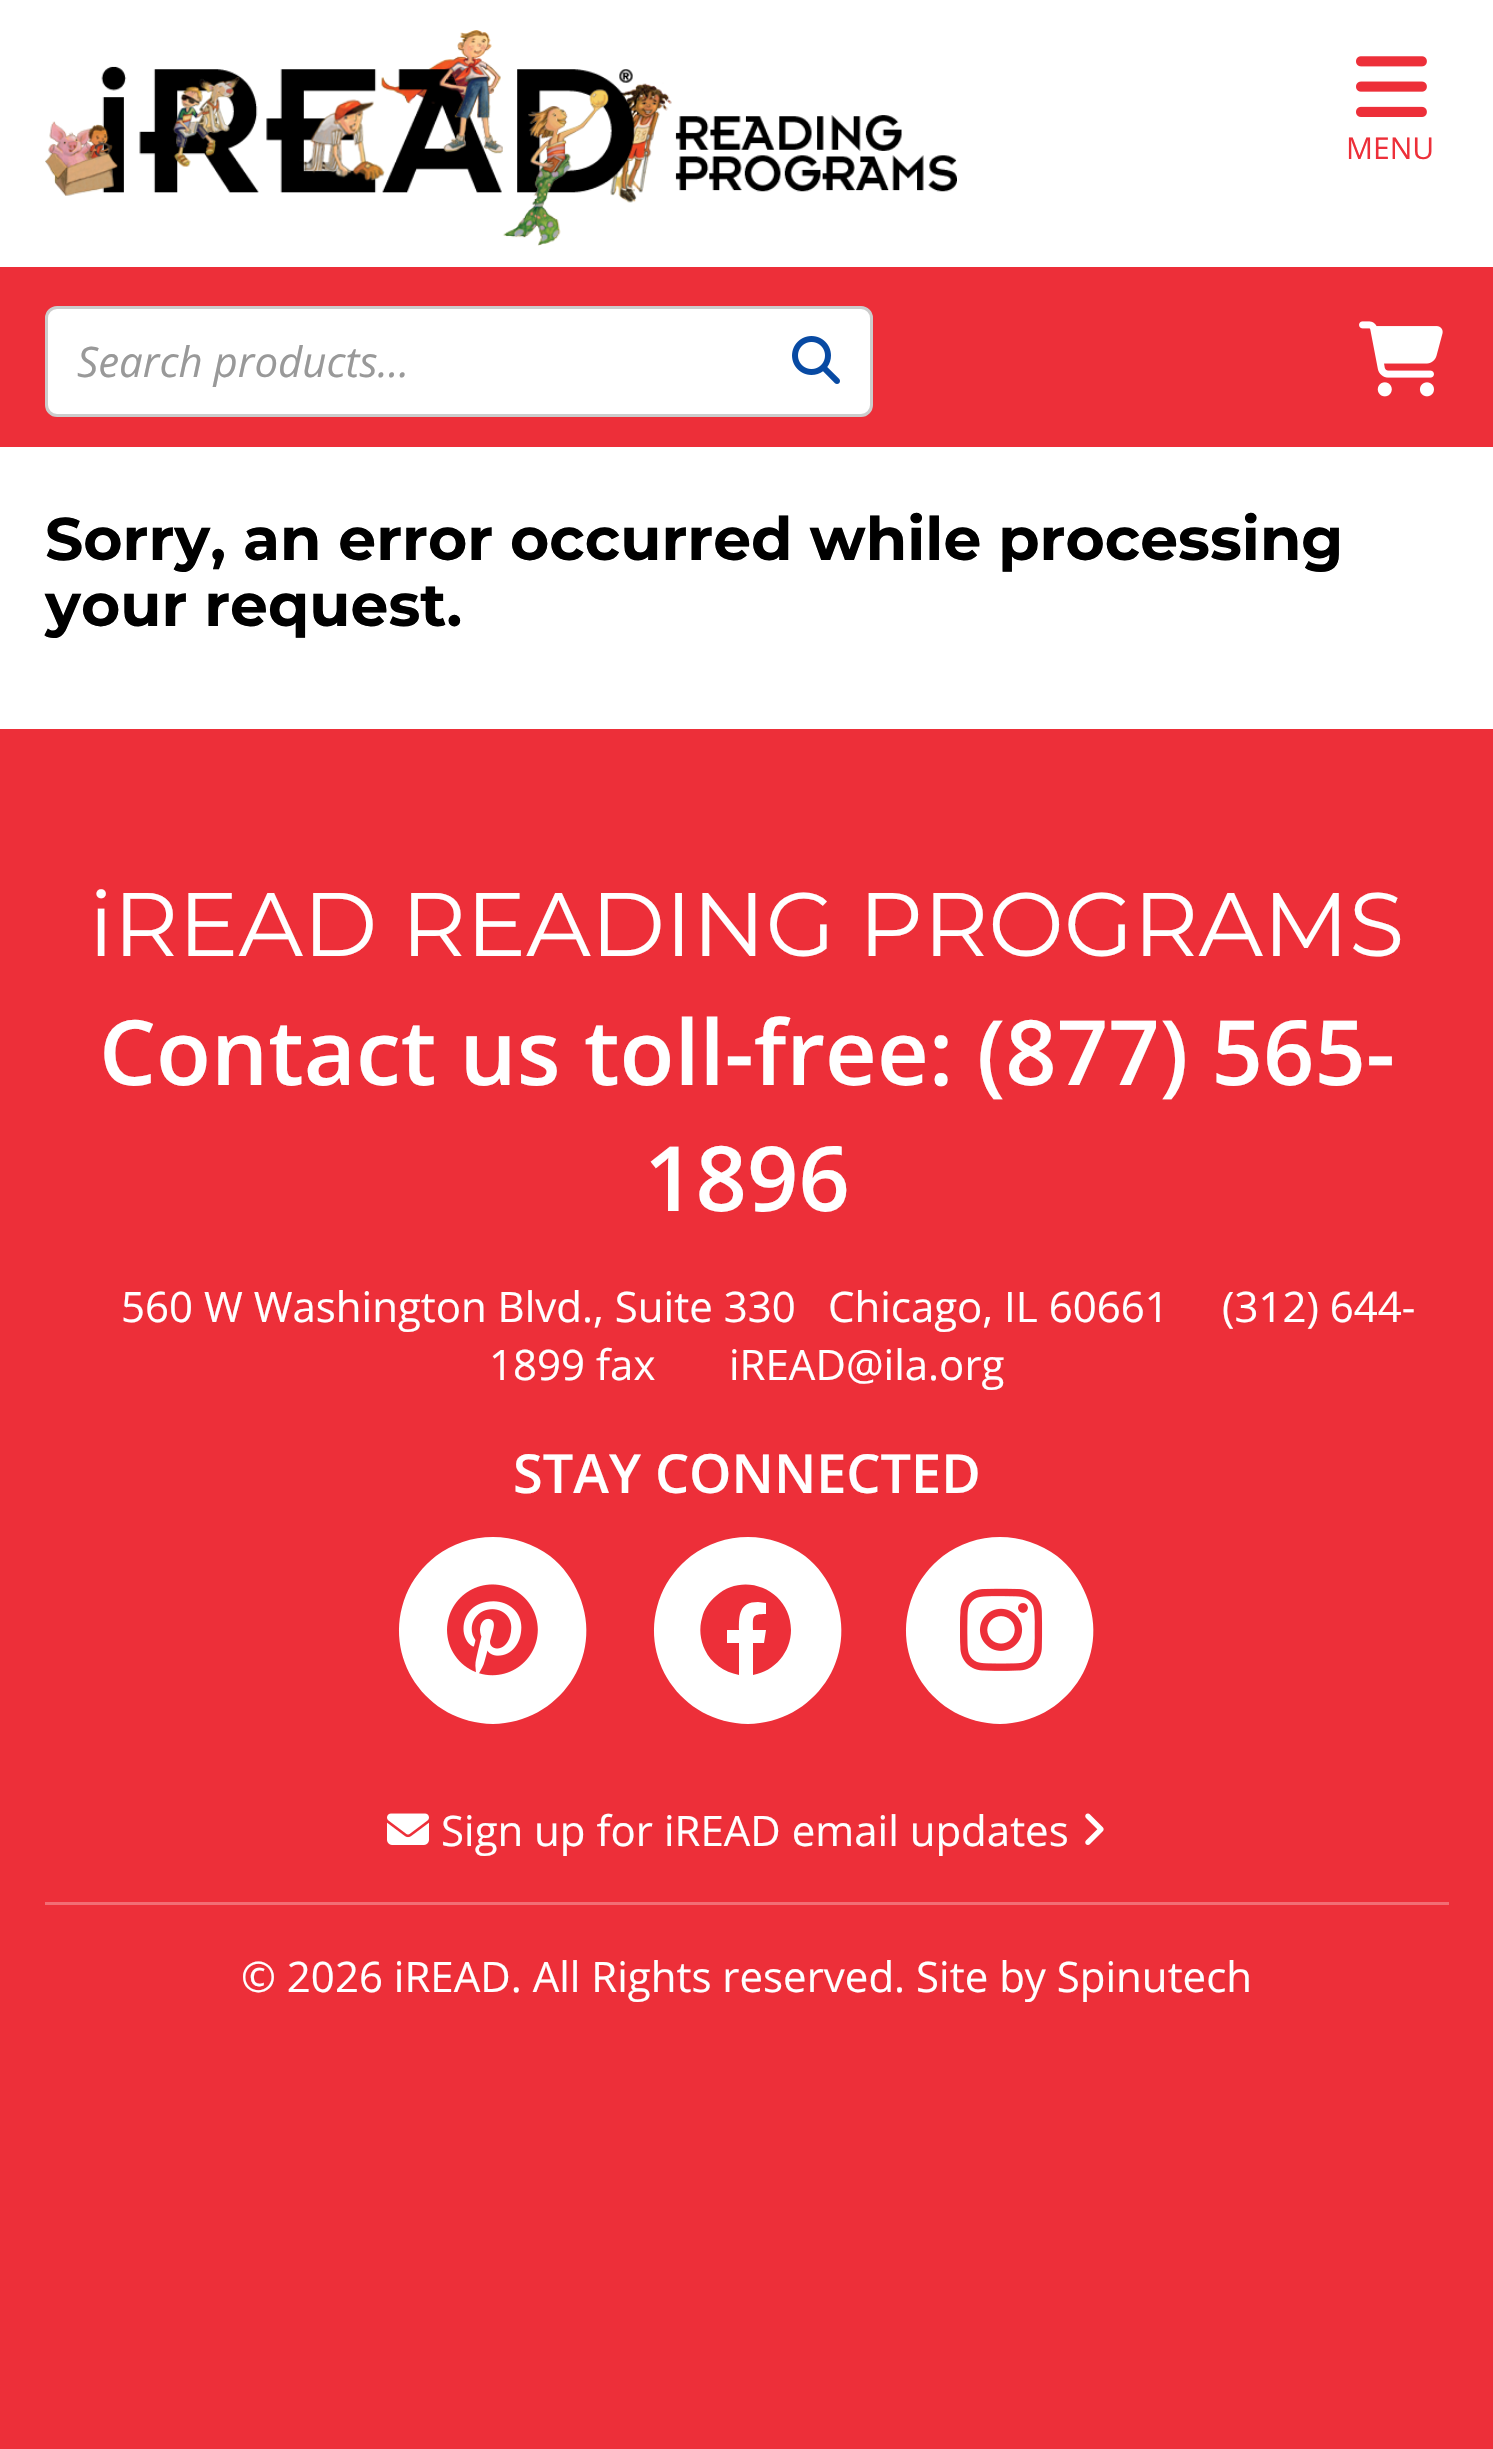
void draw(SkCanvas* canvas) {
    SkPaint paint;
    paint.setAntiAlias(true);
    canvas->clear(0xFFED2F39);
    paint.setColor(0xFFFFFFFF);
    canvas->drawRect(SkRect::MakeXYWH(0, 0, 1493, 267), paint);
    canvas->drawImageRect(SkImages::DeferredFromEncodedData(SkData::MakeFromFileName("img1.png")), SkRect::MakeXYWH(45, 30, 912, 216), SkSamplingOptions());
    canvas->drawImageRect(SkImages::DeferredFromEncodedData(SkData::MakeFromFileName("img2.png")), SkRect::MakeXYWH(1356, 56, 71, 61), SkSamplingOptions());
    SkFont font1(fontMgr->matchFamilyStyle("Open Sans", SkFontStyle::Normal()), 30);
    font1.setSubpixel(true);
    paint.setColor(0xFFED2F39);
    canvas->drawString("MENU", 1346, 159, font1, paint);
    paint.setColor(0xFFFFFFFF);
    canvas->drawRoundRect(SkRect::MakeXYWH(46.5f, 307.5f, 825, 108), 10.5f, 10.5f, paint);
    paint.setStyle(SkPaint::kStroke_Style);
    paint.setStrokeWidth(3);
    paint.setColor(0xFFCCCCCC);
    canvas->drawRoundRect(SkRect::MakeXYWH(46.5f, 307.5f, 825, 108), 10.5f, 10.5f, paint);
    SkFont font2(fontMgr->matchFamilyStyle("Open Sans", SkFontStyle::Italic()), 42);
    font2.setSubpixel(true);
    paint.setStyle(SkPaint::kFill_Style);
    paint.setColor(0xFF999999);
    canvas->drawString("Search products…", 77, 377, font2, paint);
    canvas->drawImageRect(SkImages::DeferredFromEncodedData(SkData::MakeFromFileName("img3.png")), SkRect::MakeXYWH(792, 336, 48, 48), SkSamplingOptions());
    canvas->drawImageRect(SkImages::DeferredFromEncodedData(SkData::MakeFromFileName("img4.png")), SkRect::MakeXYWH(1359, 321, 84, 76), SkSamplingOptions());
    paint.setColor(0xFFFFFFFF);
    canvas->drawRect(SkRect::MakeXYWH(0, 447, 1493, 282), paint);
    SkFont font3(fontMgr->matchFamilyStyle("Montserrat", SkFontStyle::Bold()), 60);
    font3.setSubpixel(true);
    paint.setColor(0xFF000000);
    canvas->drawString("Sorry, an error occurred while processing", 45, 560, font3, paint);
    canvas->drawString("your request.", 45, 626, font3, paint);
    SkFont font4(fontMgr->matchFamilyStyle("Montserrat", SkFontStyle::Normal()), 90);
    font4.setSubpixel(true);
    paint.setColor(0xFFFFFFFF);
    canvas->drawString("iREAD READING PROGRAMS", 89, 956, font4, paint);
    SkFont font5(fontMgr->matchFamilyStyle("Open Sans", SkFontStyle(600, SkFontStyle::kNormal_Width, SkFontStyle::kUpright_Slant)), 90);
    font5.setSubpixel(true);
    canvas->drawString("Contact us toll-free: (877) 565-", 99, 1085, font5, paint);
    canvas->drawString("1896", 644, 1211, font5, paint);
    SkFont font6(fontMgr->matchFamilyStyle("Open Sans", SkFontStyle::Normal()), 42);
    font6.setSubpixel(true);
    canvas->drawString("560 W Washington Blvd., Suite 330", 121, 1322, font6, paint);
    canvas->drawString("Chicago, IL 60661", 828, 1322, font6, paint);
    canvas->drawString("(312) 644-", 1222, 1322, font6, paint);
    canvas->drawString("1899 fax", 489, 1380, font6, paint);
    canvas->drawString("iREAD@ila.org", 729, 1380, font6, paint);
    SkFont font7(fontMgr->matchFamilyStyle("Open Sans", SkFontStyle(600, SkFontStyle::kNormal_Width, SkFontStyle::kUpright_Slant)), 54);
    font7.setSubpixel(true);
    canvas->drawString("STAY CONNECTED", 513, 1493, font7, paint);
    canvas->drawPath(SkPathBuilder().moveTo(493, 1724).cubicTo(559, 1723, 605, 1657, 579, 1595).cubicTo(573, 1580, 563, 1566, 550, 1556).cubicTo(534, 1544, 513, 1537, 493, 1537).cubicTo(472, 1537, 452, 1544, 436, 1556).cubicTo(423, 1566, 412, 1580, 406, 1595).cubicTo(381, 1657, 426, 1723, 493, 1724).close().detach(), paint);
    canvas->drawImageRect(SkImages::DeferredFromEncodedData(SkData::MakeFromFileName("img5.png")), SkRect::MakeXYWH(447, 1584, 91, 92), SkSamplingOptions());
    canvas->drawPath(SkPathBuilder().moveTo(748, 1724).cubicTo(814, 1723, 860, 1657, 834, 1595).cubicTo(828, 1580, 818, 1566, 805, 1556).cubicTo(789, 1544, 768, 1537, 748, 1537).cubicTo(727, 1537, 707, 1544, 691, 1556).cubicTo(678, 1566, 667, 1580, 661, 1595).cubicTo(636, 1657, 681, 1723, 748, 1724).close().detach(), paint);
    paint.setColor(0xFFED2F39);
    canvas->drawPath(SkPathBuilder().moveTo(791, 1630).cubicTo(791, 1591, 745, 1570, 716, 1596).cubicTo(709, 1602, 704, 1609, 702, 1618).cubicTo(699, 1628, 700, 1640, 705, 1650).cubicTo(711, 1663, 724, 1672, 739, 1675).lineTo(739, 1643).lineTo(727, 1643).lineTo(727, 1630).lineTo(739, 1630).cubicTo(739, 1615, 739, 1602, 758, 1602).lineTo(766, 1603).lineTo(766, 1614).cubicTo(751, 1614, 753, 1617, 753, 1630).lineTo(766, 1630).lineTo(764, 1643).lineTo(753, 1643).lineTo(753, 1675).cubicTo(775, 1671, 791, 1652, 791, 1630).close().detach(), paint);
    paint.setColor(0xFFFFFFFF);
    canvas->drawPath(SkPathBuilder().moveTo(1000, 1724).cubicTo(1066, 1723, 1112, 1657, 1086, 1595).cubicTo(1080, 1580, 1070, 1566, 1057, 1556).cubicTo(1041, 1544, 1020, 1537, 1000, 1537).cubicTo(979, 1537, 959, 1544, 943, 1556).cubicTo(930, 1566, 919, 1580, 913, 1595).cubicTo(888, 1657, 933, 1723, 1000, 1724).close().detach(), paint);
    canvas->drawImageRect(SkImages::DeferredFromEncodedData(SkData::MakeFromFileName("img6.png")), SkRect::MakeXYWH(960, 1588, 83, 83), SkSamplingOptions());
    canvas->drawImageRect(SkImages::DeferredFromEncodedData(SkData::MakeFromFileName("img7.png")), SkRect::MakeXYWH(387, 1813, 42, 32), SkSamplingOptions());
    canvas->drawString("Sign up for iREAD email updates", 441, 1846, font6, paint);
    canvas->drawImageRect(SkImages::DeferredFromEncodedData(SkData::MakeFromFileName("img8.png")), SkRect::MakeXYWH(1085, 1813, 19, 32), SkSamplingOptions());
    paint.setColor(0xFFF26D74);
    canvas->drawRect(SkRect::MakeXYWH(45, 1902, 1404, 3), paint);
    paint.setColor(0xFFFFFFFF);
    canvas->drawString("© 2026 iREAD. All Rights reserved. Site by Spinutech", 241, 1992, font6, paint);
}
